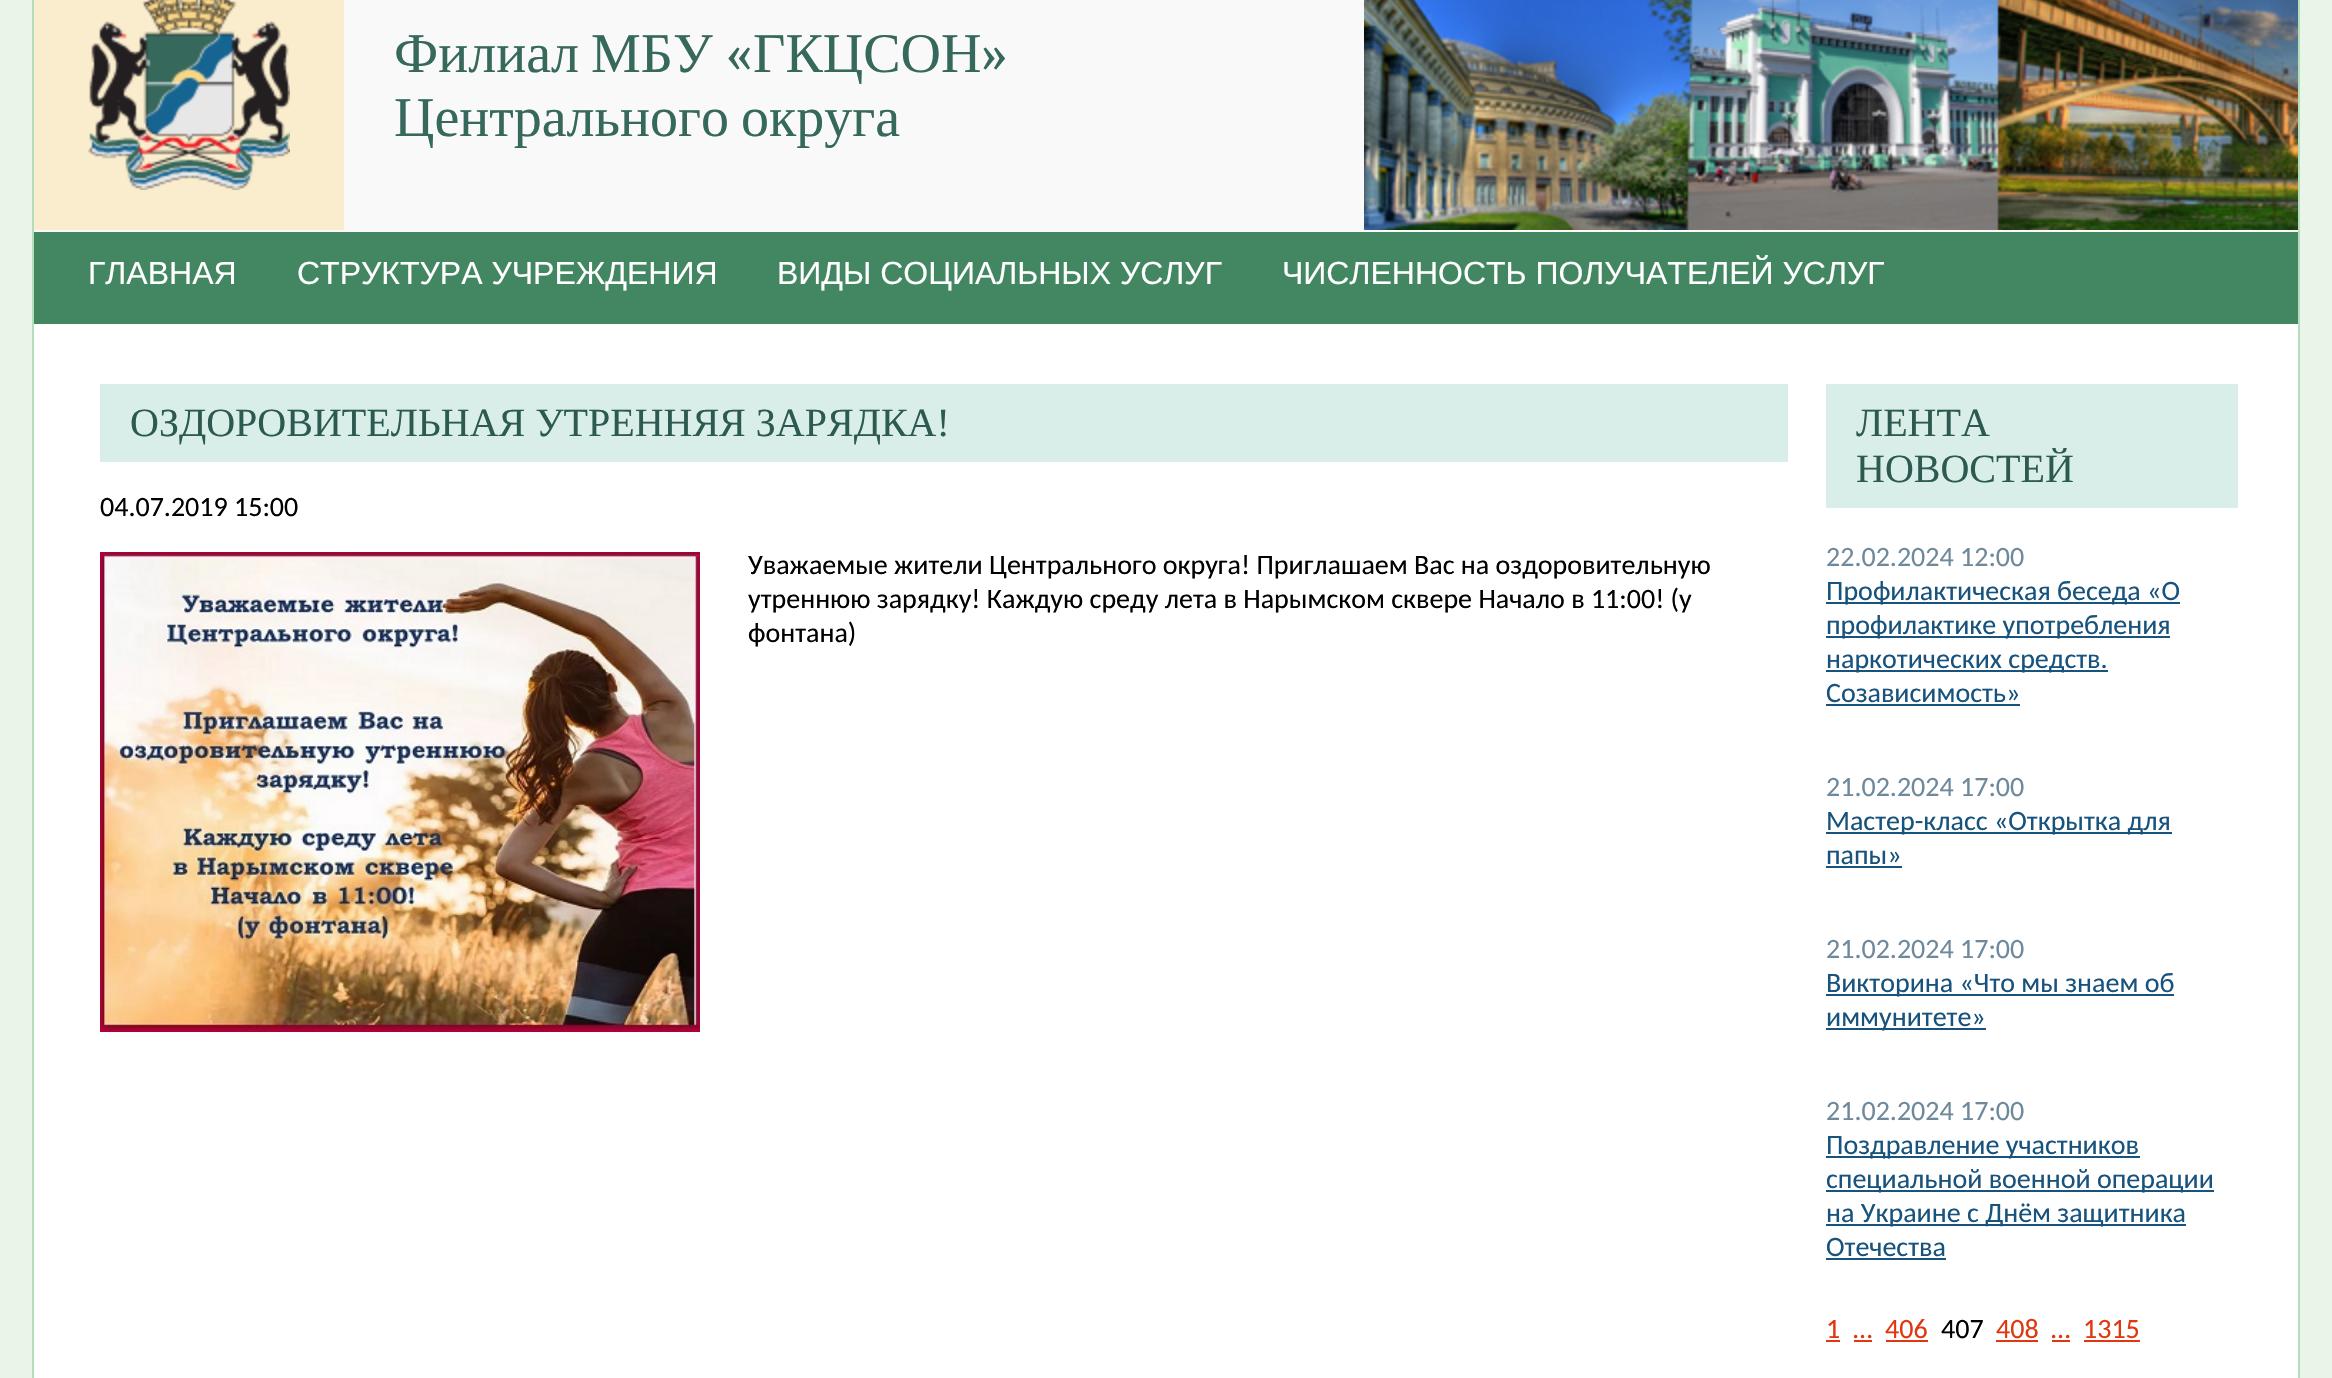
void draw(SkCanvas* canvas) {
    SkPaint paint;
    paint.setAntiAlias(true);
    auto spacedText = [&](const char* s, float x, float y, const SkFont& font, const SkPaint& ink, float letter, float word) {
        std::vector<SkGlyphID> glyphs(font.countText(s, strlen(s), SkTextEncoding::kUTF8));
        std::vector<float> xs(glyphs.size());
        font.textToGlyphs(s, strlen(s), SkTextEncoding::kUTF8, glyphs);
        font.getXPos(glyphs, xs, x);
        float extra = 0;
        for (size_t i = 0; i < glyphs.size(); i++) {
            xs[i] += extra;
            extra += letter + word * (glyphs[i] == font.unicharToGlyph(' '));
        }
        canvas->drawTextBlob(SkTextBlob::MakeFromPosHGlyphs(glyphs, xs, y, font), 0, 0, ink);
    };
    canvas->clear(0xFFE9F5E9);
    paint.setColor(0xFFFFFFFF);
    canvas->drawRect(SkRect::MakeXYWH(34, 324, 2264, 1054), paint);
    paint.setColor(0xFFB4DEBA);
    canvas->drawRect(SkRect::MakeXYWH(2298, 0, 2, 1378), paint);
    canvas->drawRect(SkRect::MakeXYWH(32, 0, 2, 1378), paint);
    paint.setColor(0xFFF9F9F9);
    canvas->drawRect(SkRect::MakeXYWH(34, 0, 2264, 232), paint);
    paint.setColor(0xFFFAEDCD);
    canvas->drawRect(SkRect::MakeXYWH(34, 0, 310, 230), paint);
    canvas->drawImageRect(SkImages::DeferredFromEncodedData(SkData::MakeFromFileName("img1.png")), SkRect::MakeXYWH(88, 0, 202, 190), SkSamplingOptions());
    canvas->drawImageRect(SkImages::DeferredFromEncodedData(SkData::MakeFromFileName("img2.png")), SkRect::MakeXYWH(1364, 0, 934, 230), SkSamplingOptions());
    SkFont font1(fontMgr->matchFamilyStyle("Liberation Serif", SkFontStyle::Normal()), 56);
    font1.setSubpixel(true);
    paint.setColor(0xFF36685C);
    canvas->drawString("Филиал", 394, 72, font1, paint);
    canvas->drawString("МБУ", 591, 72, font1, paint);
    SkFont font2(fontMgr->matchFamilyStyle("Caladea", SkFontStyle::Normal()), 56);
    font2.setSubpixel(true);
    canvas->drawString("«", 725, 72, font2, paint);
    canvas->drawString("ГКЦСОН", 753, 72, font1, paint);
    canvas->drawString("»", 981, 72, font2, paint);
    spacedText("Центрального округа", 394, 136, font1, paint, 0, -2);
    paint.setColor(0xFF428662);
    canvas->drawRect(SkRect::MakeXYWH(34, 232, 2264, 92), paint);
    SkFont font3(fontMgr->matchFamilyStyle("Liberation Sans", SkFontStyle::Normal()), 32);
    font3.setSubpixel(true);
    paint.setColor(0xFFFFFFFF);
    canvas->drawString("ГЛАВНАЯ", 88, 284, font3, paint);
    canvas->drawString("СТРУКТУРА УЧРЕЖДЕНИЯ", 297, 284, font3, paint);
    canvas->drawString("ВИДЫ СОЦИАЛЬНЫХ УСЛУГ", 777, 284, font3, paint);
    canvas->drawString("ЧИСЛЕННОСТЬ ПОЛУЧАТЕЛЕЙ УСЛУГ", 1282, 284, font3, paint);
    paint.setColor(0xFFD9EEE9);
    canvas->drawRect(SkRect::MakeXYWH(100, 384, 1688, 78), paint);
    SkFont font4(fontMgr->matchFamilyStyle("Liberation Serif", SkFontStyle::Normal()), 40);
    font4.setSubpixel(true);
    paint.setColor(0xFF2C5A50);
    canvas->drawString("ОЗДОРОВИТЕЛЬНАЯ УТРЕННЯЯ ЗАРЯДКА!", 130, 436, font4, paint);
    SkFont font5(fontMgr->matchFamilyStyle("Carlito", SkFontStyle::Normal()), 28);
    font5.setSubpixel(true);
    paint.setColor(0xFF000000);
    canvas->drawString("04.07.2019 15:00", 100, 516, font5, paint);
    canvas->drawImageRect(SkImages::DeferredFromEncodedData(SkData::MakeFromFileName("img3.png")), SkRect::MakeXYWH(100, 552, 600, 480), SkSamplingOptions());
    canvas->drawString("Уважаемые жители Центрального округа! Приглашаем Вас на оздоровительную", 748, 574, font5, paint);
    canvas->drawString("утреннюю зарядку! Каждую среду лета в Нарымском сквере Начало в 11:00! (у", 748, 608, font5, paint);
    canvas->drawString("фонтана)", 748, 642, font5, paint);
    paint.setColor(0xFFD9EEE9);
    canvas->drawRect(SkRect::MakeXYWH(1826, 384, 412, 124), paint);
    paint.setColor(0xFF2C5A50);
    canvas->drawString("ЛЕНТА", 1856, 436, font4, paint);
    canvas->drawString("НОВОСТЕЙ", 1856, 482, font4, paint);
    paint.setColor(0xFF6E899C);
    canvas->drawString("22.02.2024 12:00", 1826, 566, font5, paint);
    paint.setColor(0xFF18537D);
    canvas->drawRect(SkRect::MakeXYWH(1826, 602, 354, 2), paint);
    canvas->drawString("Профилактическая беседа «О", 1826, 600, font5, paint);
    canvas->drawRect(SkRect::MakeXYWH(1826, 636, 344, 2), paint);
    canvas->drawString("профилактике употребления", 1826, 634, font5, paint);
    canvas->drawRect(SkRect::MakeXYWH(1826, 670, 282, 2), paint);
    canvas->drawString("наркотических средств.", 1826, 668, font5, paint);
    canvas->drawString("Созависимость»", 1826, 702, font5, paint);
    canvas->drawRect(SkRect::MakeXYWH(1826, 704, 194, 2), paint);
    paint.setColor(0xFF6E899C);
    canvas->drawString("21.02.2024 17:00", 1826, 796, font5, paint);
    paint.setColor(0xFF18537D);
    canvas->drawRect(SkRect::MakeXYWH(1826, 832, 346, 2), paint);
    canvas->drawString("Мастер-класс «Открытка для", 1826, 830, font5, paint);
    canvas->drawString("папы»", 1826, 864, font5, paint);
    canvas->drawRect(SkRect::MakeXYWH(1826, 866, 76, 2), paint);
    paint.setColor(0xFF6E899C);
    canvas->drawString("21.02.2024 17:00", 1826, 958, font5, paint);
    paint.setColor(0xFF18537D);
    canvas->drawRect(SkRect::MakeXYWH(1826, 994, 348, 2), paint);
    canvas->drawString("Викторина «Что мы знаем об", 1826, 992, font5, paint);
    canvas->drawRect(SkRect::MakeXYWH(1826, 1028, 160, 2), paint);
    canvas->drawString("иммунитете»", 1826, 1026, font5, paint);
    paint.setColor(0xFF6E899C);
    canvas->drawString("21.02.2024 17:00", 1826, 1120, font5, paint);
    paint.setColor(0xFF18537D);
    canvas->drawRect(SkRect::MakeXYWH(1826, 1156, 314, 2), paint);
    canvas->drawString("Поздравление участников", 1826, 1154, font5, paint);
    canvas->drawRect(SkRect::MakeXYWH(1826, 1190, 388, 2), paint);
    canvas->drawString("специальной военной операции", 1826, 1188, font5, paint);
    canvas->drawRect(SkRect::MakeXYWH(1826, 1224, 360, 2), paint);
    canvas->drawString("на Украине с Днём защитника", 1826, 1222, font5, paint);
    canvas->drawString("Отечества", 1826, 1256, font5, paint);
    canvas->drawRect(SkRect::MakeXYWH(1826, 1258, 120, 2), paint);
    paint.setColor(0xFFDF3710);
    canvas->drawString("1", 1826, 1338, font5, paint);
    canvas->drawRect(SkRect::MakeXYWH(1826, 1340, 14, 2), paint);
    canvas->drawString("…", 1853, 1338, font5, paint);
    canvas->drawRect(SkRect::MakeXYWH(1854, 1340, 18, 2), paint);
    canvas->drawString("406", 1885, 1338, font5, paint);
    canvas->drawRect(SkRect::MakeXYWH(1886, 1340, 42, 2), paint);
    paint.setColor(0xFF000000);
    canvas->drawString("407", 1941, 1338, font5, paint);
    paint.setColor(0xFFDF3710);
    canvas->drawString("408", 1996, 1338, font5, paint);
    canvas->drawRect(SkRect::MakeXYWH(1996, 1340, 42, 2), paint);
    canvas->drawString("…", 2051, 1338, font5, paint);
    canvas->drawRect(SkRect::MakeXYWH(2052, 1340, 18, 2), paint);
    canvas->drawString("1315", 2083, 1338, font5, paint);
    canvas->drawRect(SkRect::MakeXYWH(2084, 1340, 56, 2), paint);
}
